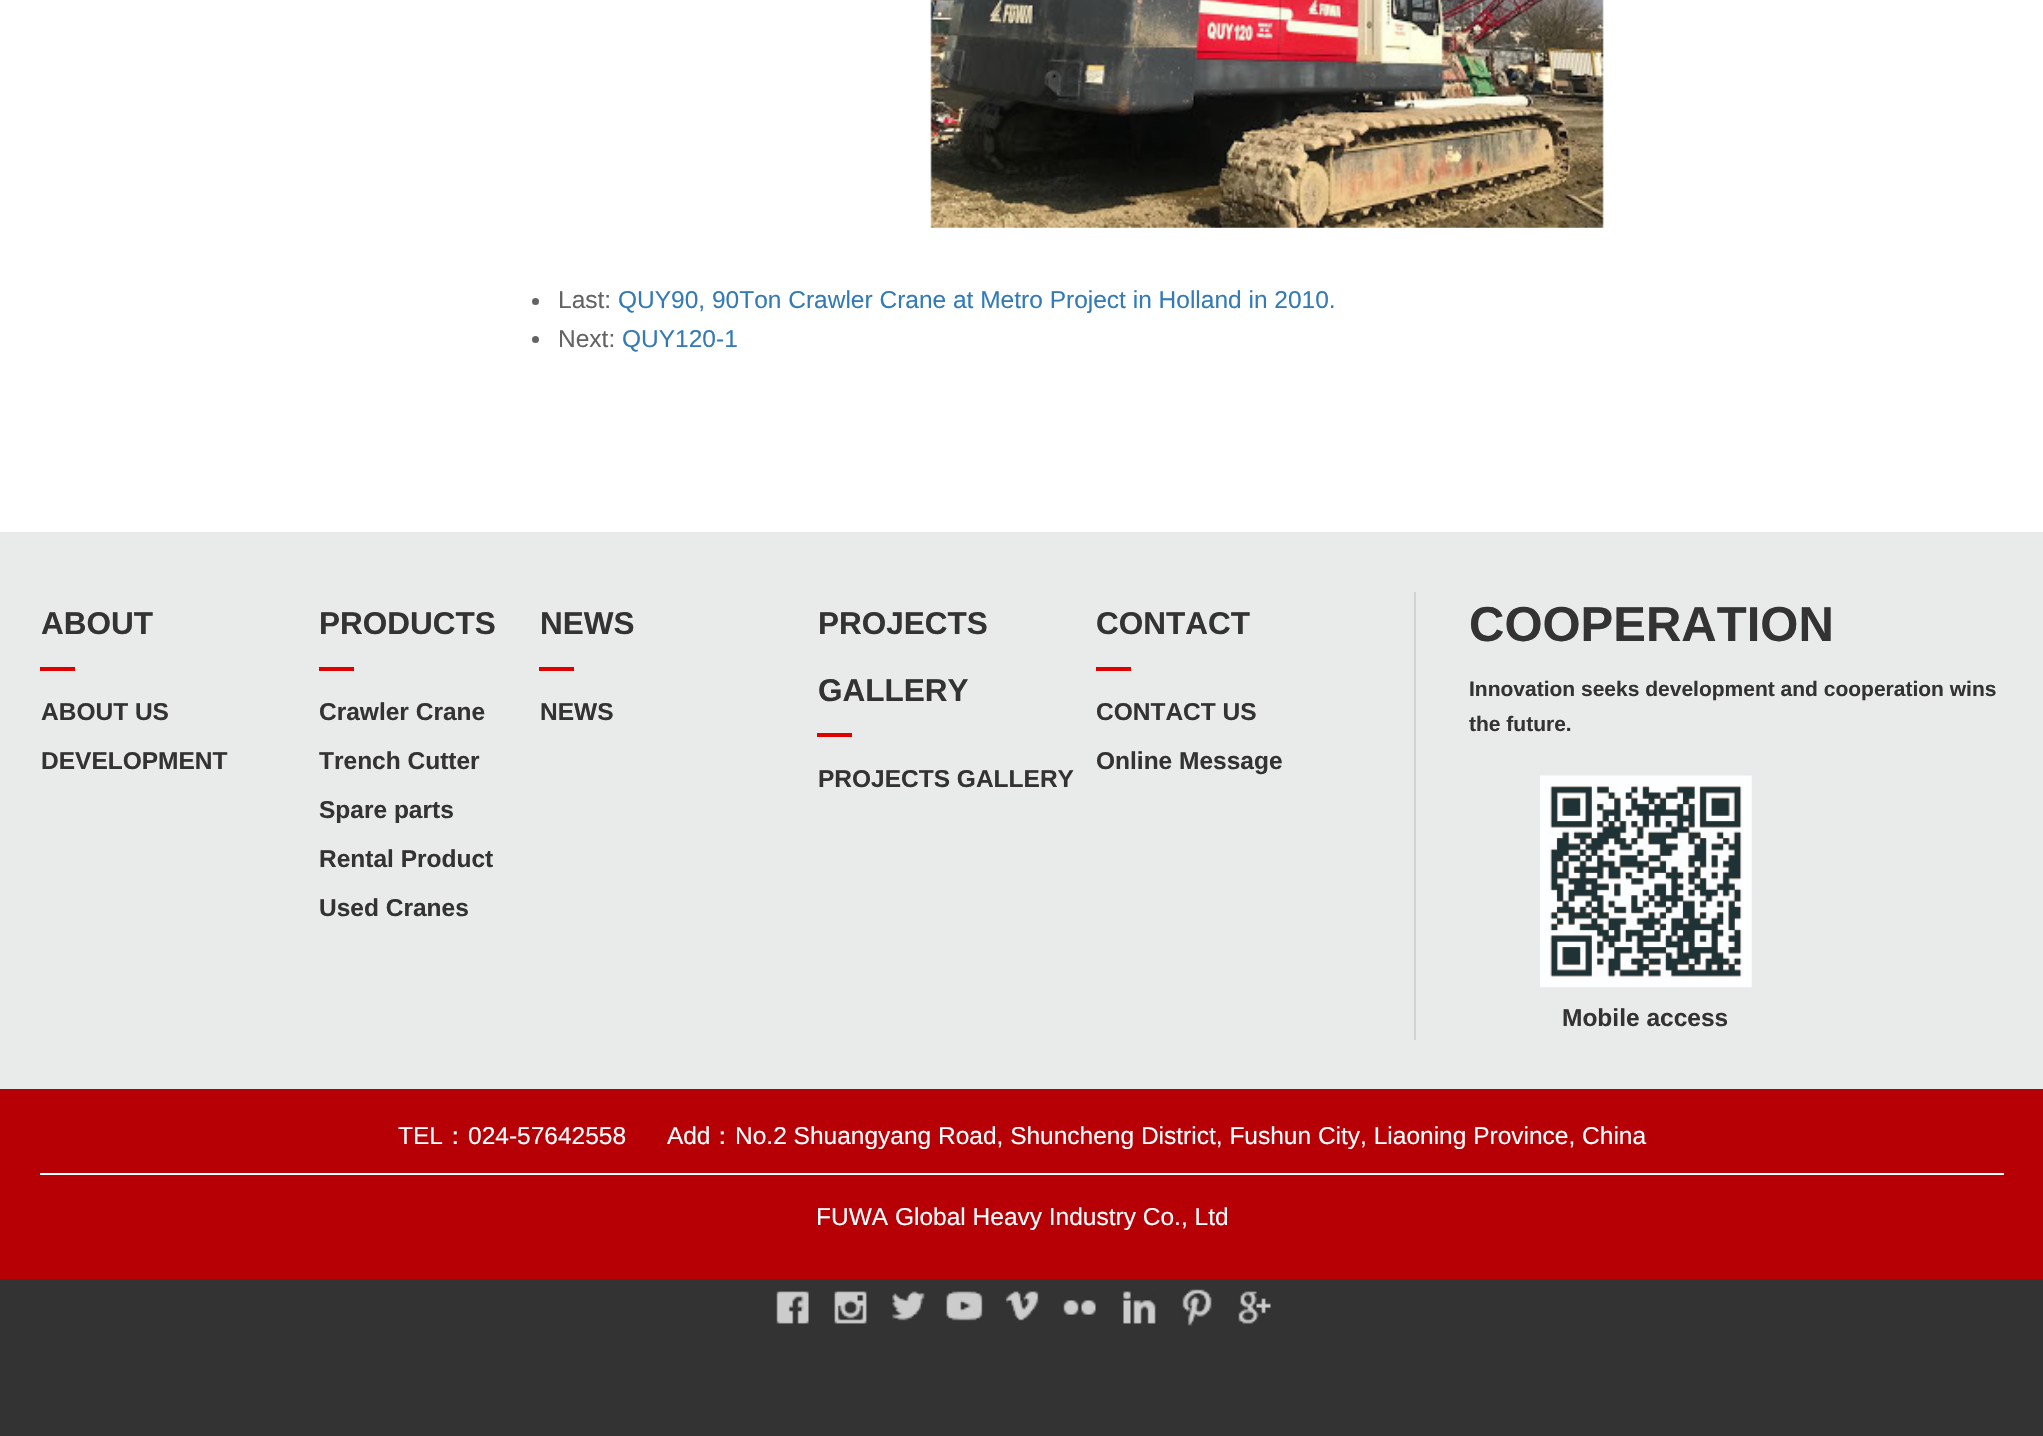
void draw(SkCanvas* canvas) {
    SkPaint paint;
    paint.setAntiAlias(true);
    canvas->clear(0xFFFFFFFF);
    canvas->drawImageRect(SkImages::DeferredFromEncodedData(SkData::MakeFromFileName("img1.png")), SkRect::MakeXYWH(930, 0, 674, 228), SkSamplingOptions());
    paint.setColor(0xFF656464);
    canvas->drawCircle(535.5f, 301.5f, 3.5f, paint);
    SkFont font1(fontMgr->matchFamilyStyle("Liberation Sans", SkFontStyle::Normal()), 24.5f);
    font1.setSubpixel(true);
    canvas->drawString("Last:", 558, 308, font1, paint);
    paint.setColor(0xFF337AB7);
    canvas->drawString("QUY90, 90Ton Crawler Crane at Metro Project in Holland in 2010.", 618, 308, font1, paint);
    paint.setColor(0xFF656464);
    canvas->drawCircle(535.5f, 339.5f, 3.5f, paint);
    canvas->drawString("Next:", 558, 347, font1, paint);
    paint.setColor(0xFF337AB7);
    canvas->drawString("QUY120-1", 622, 347, font1, paint);
    paint.setColor(0xFFE9EAEA);
    canvas->drawRect(SkRect::MakeXYWH(0, 532, 2043, 557), paint);
    SkFont font2(fontMgr->matchFamilyStyle("Liberation Sans", SkFontStyle::Bold()), 31.5f);
    font2.setSubpixel(true);
    paint.setColor(0xFF333333);
    canvas->drawString("ABOUT", 41, 634, font2, paint);
    paint.setColor(0xFFDF0000);
    canvas->drawRect(SkRect::MakeXYWH(40, 667, 35, 4), paint);
    SkFont font3(fontMgr->matchFamilyStyle("Liberation Sans", SkFontStyle::Bold()), 24.5f);
    font3.setSubpixel(true);
    paint.setColor(0xFF333333);
    canvas->drawString("ABOUT US", 41, 720, font3, paint);
    canvas->drawString("DEVELOPMENT", 41, 769, font3, paint);
    canvas->drawString("PRODUCTS", 319, 634, font2, paint);
    paint.setColor(0xFFDF0000);
    canvas->drawRect(SkRect::MakeXYWH(319, 667, 35, 4), paint);
    paint.setColor(0xFF333333);
    canvas->drawString("Crawler Crane", 319, 720, font3, paint);
    canvas->drawString("Trench Cutter", 319, 769, font3, paint);
    canvas->drawString("Spare parts", 319, 818, font3, paint);
    canvas->drawString("Rental Product", 319, 867, font3, paint);
    canvas->drawString("Used Cranes", 319, 916, font3, paint);
    canvas->drawString("NEWS", 540, 634, font2, paint);
    paint.setColor(0xFFDF0000);
    canvas->drawRect(SkRect::MakeXYWH(539, 667, 35, 4), paint);
    paint.setColor(0xFF333333);
    canvas->drawString("NEWS", 540, 720, font3, paint);
    canvas->drawString("PROJECTS", 818, 634, font2, paint);
    canvas->drawString("GALLERY", 818, 701, font2, paint);
    paint.setColor(0xFFDF0000);
    canvas->drawRect(SkRect::MakeXYWH(817, 733, 35, 4), paint);
    paint.setColor(0xFF333333);
    canvas->drawString("PROJECTS GALLERY", 818, 787, font3, paint);
    canvas->drawString("CONTACT", 1096, 634, font2, paint);
    paint.setColor(0xFFDF0000);
    canvas->drawRect(SkRect::MakeXYWH(1096, 667, 35, 4), paint);
    paint.setColor(0xFF333333);
    canvas->drawString("CONTACT US", 1096, 720, font3, paint);
    canvas->drawString("Online Message", 1096, 769, font3, paint);
    paint.setColor(0xFFD2D2D2);
    canvas->drawRect(SkRect::MakeXYWH(1414, 592, 2, 448), paint);
    SkFont font4(fontMgr->matchFamilyStyle("Liberation Sans", SkFontStyle::Bold()), 49);
    font4.setSubpixel(true);
    paint.setColor(0xFF333333);
    canvas->drawString("COOPERATION", 1469, 641, font4, paint);
    SkFont font5(fontMgr->matchFamilyStyle("Liberation Sans", SkFontStyle::Bold()), 21);
    font5.setSubpixel(true);
    canvas->drawString("Innovation seeks development and cooperation wins", 1469, 696, font5, paint);
    canvas->drawString("the future.", 1469, 731, font5, paint);
    canvas->drawImageRect(SkImages::DeferredFromEncodedData(SkData::MakeFromFileName("img2.png")), SkRect::MakeXYWH(1540, 775, 212, 213), SkSamplingOptions());
    canvas->drawString("Mobile access", 1562, 1026, font3, paint);
    paint.setColor(0xFFB60005);
    canvas->drawRect(SkRect::MakeXYWH(0, 1089, 2043, 190), paint);
    paint.setColor(0xFFFFFFFF);
    canvas->drawString("TEL", 398, 1144, font1, paint);
    SkFont font6(fontMgr->matchFamilyStyle("WenQuanYi Zen Hei", SkFontStyle(500, SkFontStyle::kNormal_Width, SkFontStyle::kUpright_Slant)), 24.5f);
    font6.setSubpixel(true);
    canvas->drawString("：", 443, 1144, font6, paint);
    canvas->drawString("024-57642558      Add", 468, 1144, font1, paint);
    canvas->drawString("：", 710, 1144, font6, paint);
    canvas->drawString("No.2 Shuangyang Road, Shuncheng District, Fushun City, Liaoning Province, China", 735, 1144, font1, paint);
    canvas->drawRect(SkRect::MakeXYWH(40, 1173, 1964, 2), paint);
    canvas->drawString("FUWA Global Heavy Industry Co., Ltd", 816, 1225, font1, paint);
    paint.setColor(0xFF333333);
    canvas->drawRect(SkRect::MakeXYWH(0, 1279, 2043, 157), paint);
    canvas->drawImageRect(SkImages::DeferredFromEncodedData(SkData::MakeFromFileName("img3.png")), SkRect::MakeXYWH(776, 1291, 33, 33), SkSamplingOptions());
    canvas->drawImageRect(SkImages::DeferredFromEncodedData(SkData::MakeFromFileName("img4.png")), SkRect::MakeXYWH(834, 1291, 33, 33), SkSamplingOptions());
    canvas->drawImageRect(SkImages::DeferredFromEncodedData(SkData::MakeFromFileName("img5.png")), SkRect::MakeXYWH(892, 1291, 33, 30), SkSamplingOptions());
    canvas->drawImageRect(SkImages::DeferredFromEncodedData(SkData::MakeFromFileName("img6.png")), SkRect::MakeXYWH(946, 1291, 37, 30), SkSamplingOptions());
    canvas->drawImageRect(SkImages::DeferredFromEncodedData(SkData::MakeFromFileName("img7.png")), SkRect::MakeXYWH(1005, 1291, 34, 30), SkSamplingOptions());
    canvas->drawImageRect(SkImages::DeferredFromEncodedData(SkData::MakeFromFileName("img8.png")), SkRect::MakeXYWH(1063, 1300, 33, 15), SkSamplingOptions());
    canvas->drawImageRect(SkImages::DeferredFromEncodedData(SkData::MakeFromFileName("img9.png")), SkRect::MakeXYWH(1123, 1291, 33, 33), SkSamplingOptions());
    canvas->drawImageRect(SkImages::DeferredFromEncodedData(SkData::MakeFromFileName("img10.png")), SkRect::MakeXYWH(1182, 1289, 30, 37), SkSamplingOptions());
    canvas->drawImageRect(SkImages::DeferredFromEncodedData(SkData::MakeFromFileName("img11.png")), SkRect::MakeXYWH(1238, 1291, 33, 33), SkSamplingOptions());
}
